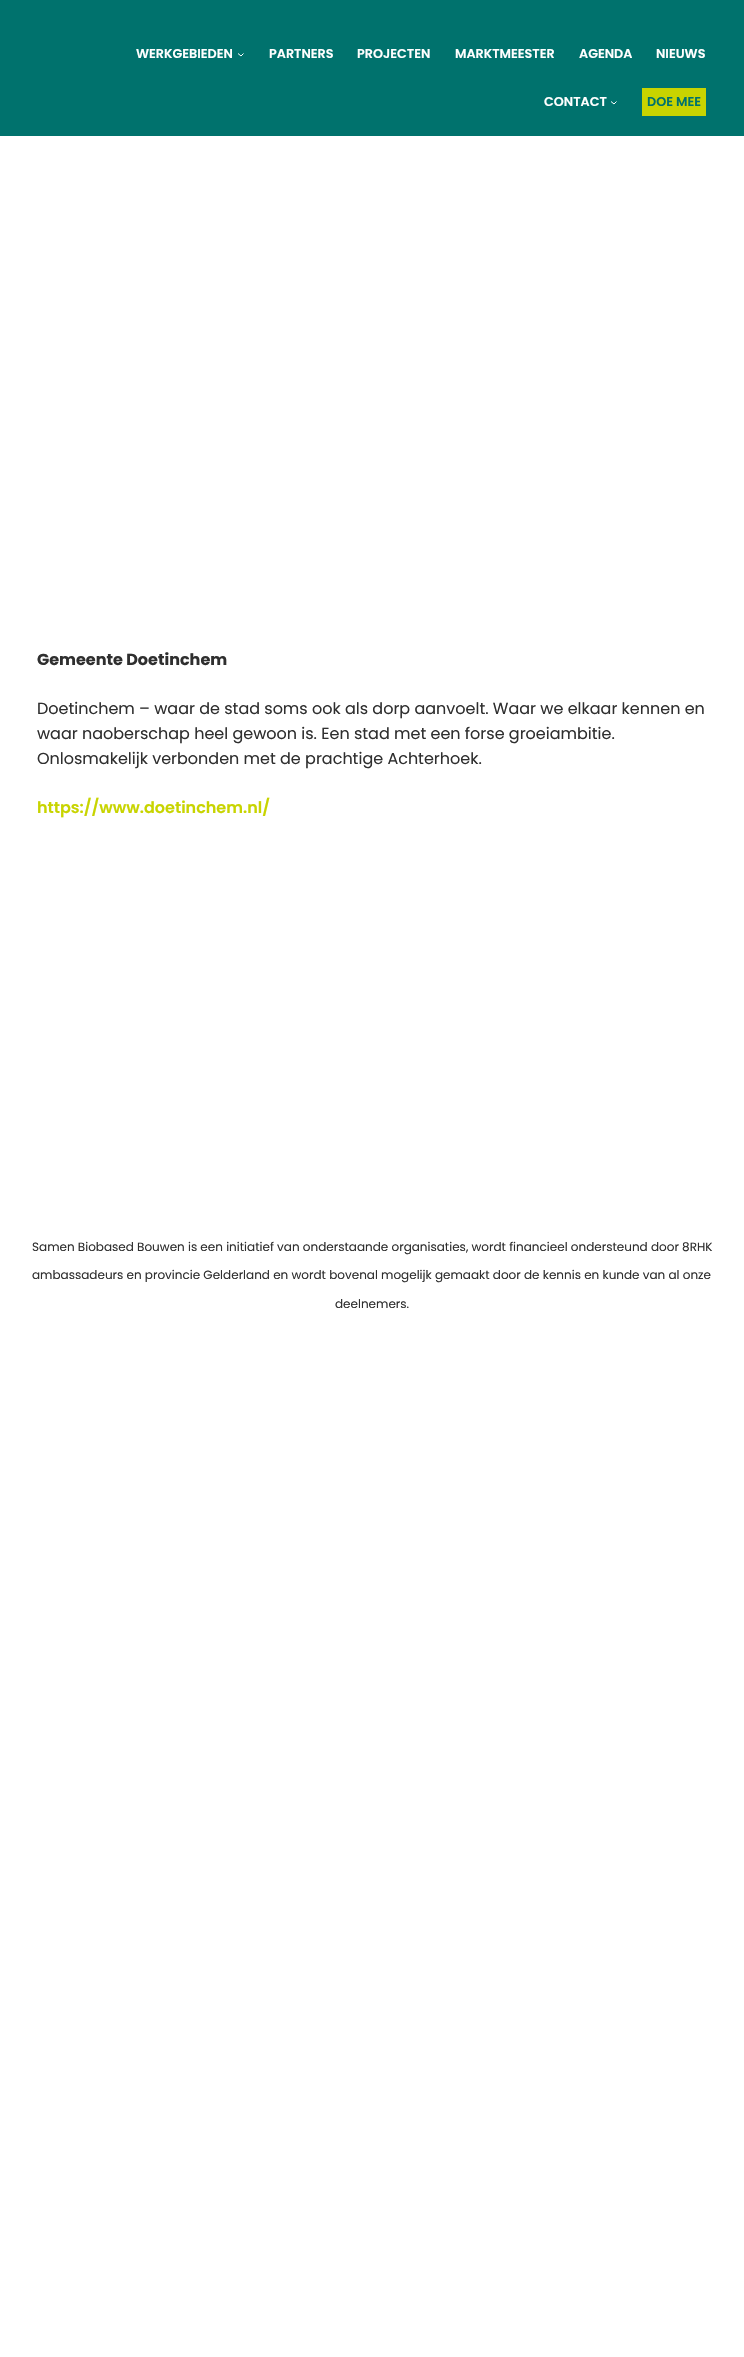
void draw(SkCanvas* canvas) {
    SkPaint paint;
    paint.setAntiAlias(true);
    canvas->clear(0xFFFFFFFF);
    paint.setColor(0xFF00726D);
    canvas->drawRect(SkRect::MakeXYWH(0, 0, 744, 136), paint);
    SkFont font1(fontMgr->matchFamilyStyle("Poppins", SkFontStyle(600, SkFontStyle::kNormal_Width, SkFontStyle::kUpright_Slant)), 12.75f);
    font1.setSubpixel(true);
    paint.setColor(0xFFFFFFFF);
    canvas->drawString("WERKGEBIEDEN", 136, 58, font1, paint);
    paint.setStyle(SkPaint::kStroke_Style);
    paint.setStrokeWidth(1);
    canvas->drawPath(SkPathBuilder().moveTo(238, 53.5f).lineTo(241, 56).lineTo(243.5f, 53.5f).detach(), paint);
    paint.setStyle(SkPaint::kFill_Style);
    canvas->drawString("PARTNERS", 269, 58, font1, paint);
    canvas->drawString("PROJECTEN", 357, 58, font1, paint);
    canvas->drawString("MARKTMEESTER", 455, 58, font1, paint);
    canvas->drawString("AGENDA", 579, 58, font1, paint);
    canvas->drawString("NIEUWS", 656, 58, font1, paint);
    canvas->drawString("CONTACT", 544, 106, font1, paint);
    paint.setStyle(SkPaint::kStroke_Style);
    canvas->drawPath(SkPathBuilder().moveTo(611, 101.5f).lineTo(614, 104).lineTo(616.5f, 101.5f).detach(), paint);
    paint.setStyle(SkPaint::kFill_Style);
    paint.setColor(0xFFC8D400);
    canvas->drawRect(SkRect::MakeXYWH(642, 88, 64, 28), paint);
    paint.setColor(0xFF00726D);
    canvas->drawString("DOE MEE", 647, 106, font1, paint);
    SkFont font2(fontMgr->matchFamilyStyle("Poppins", SkFontStyle::Bold()), 16);
    font2.setSubpixel(true);
    paint.setColor(0xFF2F2F2F);
    canvas->drawString("Gemeente Doetinchem", 37, 665, font2, paint);
    SkFont font3(fontMgr->matchFamilyStyle("Poppins", SkFontStyle::Normal()), 16);
    font3.setSubpixel(true);
    canvas->drawString("Doetinchem – waar de stad soms ook als dorp aanvoelt. Waar we elkaar kennen en", 37, 714, font3, paint);
    canvas->drawString("waar naoberschap heel gewoon is. Een stad met een forse groeiambitie.", 37, 739, font3, paint);
    canvas->drawString("Onlosmakelijk verbonden met de prachtige Achterhoek.", 37, 764, font3, paint);
    SkFont font4(fontMgr->matchFamilyStyle("Poppins", SkFontStyle(600, SkFontStyle::kNormal_Width, SkFontStyle::kUpright_Slant)), 16);
    font4.setSubpixel(true);
    paint.setColor(0xFFC8D400);
    canvas->drawString("https://www.doetinchem.nl/", 37, 813, font4, paint);
    SkFont font5(fontMgr->matchFamilyStyle("Poppins", SkFontStyle::Normal()), 12);
    font5.setSubpixel(true);
    paint.setColor(0xFF2F2F2F);
    canvas->drawString("Samen Biobased Bouwen is een initiatief van onderstaande organisaties, wordt financieel ondersteund door 8RHK", 32, 1251, font5, paint);
    canvas->drawString("ambassadeurs en provincie Gelderland en wordt bovenal mogelijk gemaakt door de kennis en kunde van al onze", 32, 1279, font5, paint);
    canvas->drawString("deelnemers.", 335, 1308, font5, paint);
}
